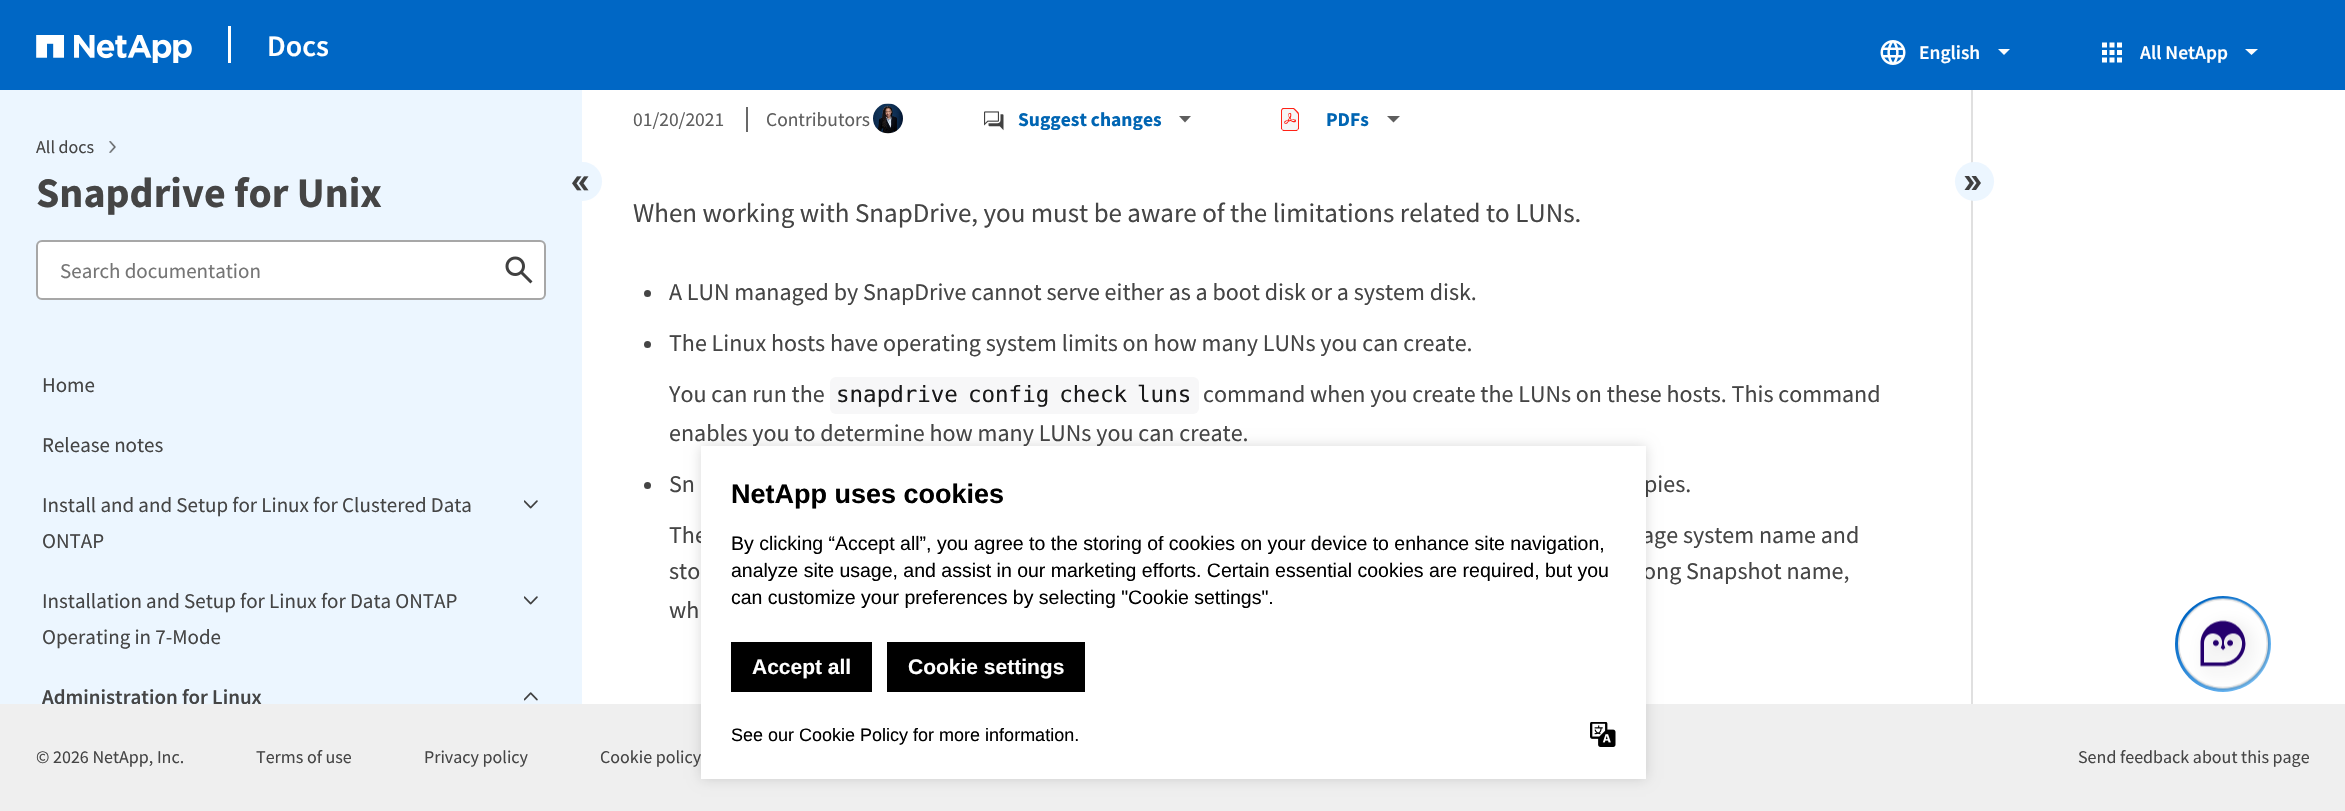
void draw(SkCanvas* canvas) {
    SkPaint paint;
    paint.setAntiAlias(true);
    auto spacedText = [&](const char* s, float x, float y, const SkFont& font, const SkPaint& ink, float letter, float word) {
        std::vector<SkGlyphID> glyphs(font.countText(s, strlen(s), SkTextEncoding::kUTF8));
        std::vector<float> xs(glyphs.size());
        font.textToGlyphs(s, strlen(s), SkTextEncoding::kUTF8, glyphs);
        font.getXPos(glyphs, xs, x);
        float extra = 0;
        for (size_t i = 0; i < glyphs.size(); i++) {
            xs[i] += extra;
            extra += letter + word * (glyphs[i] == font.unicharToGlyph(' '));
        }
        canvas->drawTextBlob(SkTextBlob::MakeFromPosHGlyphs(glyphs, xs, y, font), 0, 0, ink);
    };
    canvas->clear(0xFFFFFFFF);
    paint.setColor(0xFF0067C5);
    canvas->drawRect(SkRect::MakeXYWH(0, 0, 2345, 90), paint);
    canvas->drawImageRect(SkImages::DeferredFromEncodedData(SkData::MakeFromFileName("img1.png")), SkRect::MakeXYWH(36, 35, 156, 28), SkSamplingOptions());
    paint.setColor(0xFFFFFFFF);
    canvas->drawRect(SkRect::MakeXYWH(228, 26, 3, 37), paint);
    SkFont font1(fontMgr->matchFamilyStyle("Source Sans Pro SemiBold", SkFontStyle(600, SkFontStyle::kNormal_Width, SkFontStyle::kUpright_Slant)), 30);
    font1.setSubpixel(true);
    canvas->drawString("Docs", 267, 56, font1, paint);
    canvas->drawImageRect(SkImages::DeferredFromEncodedData(SkData::MakeFromFileName("img2.png")), SkRect::MakeXYWH(1880, 40, 26, 25), SkSamplingOptions());
    SkFont font2(fontMgr->matchFamilyStyle("Source Sans Pro SemiBold", SkFontStyle(600, SkFontStyle::kNormal_Width, SkFontStyle::kUpright_Slant)), 19.5f);
    font2.setSubpixel(true);
    canvas->drawString("English", 1919, 59, font2, paint);
    paint.setColor(0xFFFDFDFD);
    canvas->drawPath(SkPathBuilder().moveTo(2004, 55).lineTo(1998, 49).lineTo(2010, 49).close().detach(), paint);
    canvas->drawImageRect(SkImages::DeferredFromEncodedData(SkData::MakeFromFileName("img3.png")), SkRect::MakeXYWH(2102, 42, 20, 21), SkSamplingOptions());
    paint.setColor(0xFFFFFFFF);
    canvas->drawString("All NetApp", 2140, 59, font2, paint);
    paint.setColor(0xFFFDFDFD);
    canvas->drawPath(SkPathBuilder().moveTo(2251.5f, 55).lineTo(2245, 49).lineTo(2258, 49).close().detach(), paint);
    paint.setColor(0xFFECF6FF);
    canvas->drawRect(SkRect::MakeXYWH(0, 90, 582, 614), paint);
    SkFont font3(fontMgr->matchFamilyStyle("Source Sans Pro", SkFontStyle::Normal()), 18);
    font3.setSubpixel(true);
    paint.setColor(0xFF454545);
    canvas->drawString("All docs", 36, 153, font3, paint);
    canvas->drawImageRect(SkImages::DeferredFromEncodedData(SkData::MakeFromFileName("img4.png")), SkRect::MakeXYWH(109, 141, 7, 12), SkSamplingOptions());
    SkFont font4(fontMgr->matchFamilyStyle("Source Sans Pro", SkFontStyle::Bold()), 42);
    font4.setSubpixel(true);
    canvas->drawString("Snapdrive for Unix", 36, 207, font4, paint);
    paint.setColor(0xFFECF6FF);
    canvas->drawCircle(582.5f, 181.5f, 19.5f, paint);
    canvas->drawImageRect(SkImages::DeferredFromEncodedData(SkData::MakeFromFileName("img5.png")), SkRect::MakeXYWH(572, 176, 17, 15), SkSamplingOptions());
    paint.setColor(0xFFFFFFFF);
    canvas->drawRoundRect(SkRect::MakeXYWH(37, 241, 508, 58), 5, 5, paint);
    paint.setStyle(SkPaint::kStroke_Style);
    paint.setStrokeWidth(2);
    paint.setColor(0xFFA7A7A7);
    canvas->drawRoundRect(SkRect::MakeXYWH(37, 241, 508, 58), 5, 5, paint);
    SkFont font5(fontMgr->matchFamilyStyle("Source Sans Pro", SkFontStyle::Normal()), 21);
    font5.setSubpixel(true);
    paint.setStyle(SkPaint::kFill_Style);
    paint.setColor(0xFF757575);
    canvas->drawString("Search documentation", 60, 278, font5, paint);
    canvas->drawImageRect(SkImages::DeferredFromEncodedData(SkData::MakeFromFileName("img6.png")), SkRect::MakeXYWH(505, 256, 28, 28), SkSamplingOptions());
    paint.setColor(0xFF454545);
    canvas->drawString("Home", 42, 392, font5, paint);
    canvas->drawString("Release notes", 42, 452, font5, paint);
    canvas->drawString("Install and and Setup for Linux for Clustered Data", 42, 512, font5, paint);
    canvas->drawImageRect(SkImages::DeferredFromEncodedData(SkData::MakeFromFileName("img7.png")), SkRect::MakeXYWH(524, 500, 14, 9), SkSamplingOptions());
    canvas->drawString("ONTAP", 42, 548, font5, paint);
    canvas->drawString("Installation and Setup for Linux for Data ONTAP", 42, 608, font5, paint);
    canvas->drawImageRect(SkImages::DeferredFromEncodedData(SkData::MakeFromFileName("img7.png")), SkRect::MakeXYWH(524, 596, 14, 9), SkSamplingOptions());
    canvas->drawString("Operating in 7-Mode", 42, 644, font5, paint);
    SkFont font6(fontMgr->matchFamilyStyle("Source Sans Pro SemiBold", SkFontStyle(600, SkFontStyle::kNormal_Width, SkFontStyle::kUpright_Slant)), 21);
    font6.setSubpixel(true);
    canvas->drawString("Administration for Linux", 42, 704, font6, paint);
    canvas->drawImageRect(SkImages::DeferredFromEncodedData(SkData::MakeFromFileName("img8.png")), SkRect::MakeXYWH(524, 692, 14, 9), SkSamplingOptions());
    SkFont font7(fontMgr->matchFamilyStyle("Source Sans Pro", SkFontStyle::Normal()), 19.5f);
    font7.setSubpixel(true);
    paint.setColor(0xFF5E5E5E);
    canvas->drawString("01/20/2021", 633, 126, font7, paint);
    paint.setColor(0xFF686868);
    canvas->drawRect(SkRect::MakeXYWH(746, 107, 2, 25), paint);
    paint.setColor(0xFF5E5E5E);
    canvas->drawString("Contributors", 766, 126, font7, paint);
    canvas->drawImageRect(SkImages::DeferredFromEncodedData(SkData::MakeFromFileName("img9.png")), SkRect::MakeXYWH(873, 103, 30, 31), SkSamplingOptions());
    canvas->drawImageRect(SkImages::DeferredFromEncodedData(SkData::MakeFromFileName("img10.png")), SkRect::MakeXYWH(984, 111, 20, 20), SkSamplingOptions());
    SkFont font8(fontMgr->matchFamilyStyle("Source Sans Pro", SkFontStyle::Bold()), 19.5f);
    font8.setSubpixel(true);
    paint.setColor(0xFF0065B3);
    canvas->drawString("Suggest changes", 1018, 126, font8, paint);
    paint.setColor(0xFF5E5E5E);
    canvas->drawPath(SkPathBuilder().moveTo(1185, 122.5f).lineTo(1179, 116).lineTo(1191, 116).close().detach(), paint);
    canvas->drawImageRect(SkImages::DeferredFromEncodedData(SkData::MakeFromFileName("img11.png")), SkRect::MakeXYWH(1281, 108, 18, 23), SkSamplingOptions());
    paint.setColor(0xFF0065B3);
    canvas->drawString("PDFs", 1326, 126, font8, paint);
    paint.setColor(0xFF5E5E5E);
    canvas->drawPath(SkPathBuilder().moveTo(1393.5f, 122.5f).lineTo(1387, 116).lineTo(1400, 116).close().detach(), paint);
    SkFont font9(fontMgr->matchFamilyStyle("Source Sans Pro", SkFontStyle::Normal()), 27);
    font9.setSubpixel(true);
    paint.setColor(0xFF454545);
    canvas->drawString("When working with SnapDrive, you must be aware of the limitations related to LUNs.", 633, 222, font9, paint);
    canvas->drawCircle(647.5f, 293.5f, 3.5f, paint);
    SkFont font10(fontMgr->matchFamilyStyle("Source Sans Pro", SkFontStyle::Normal()), 24);
    font10.setSubpixel(true);
    canvas->drawString("A LUN managed by SnapDrive cannot serve either as a boot disk or a system disk.", 669, 300, font10, paint);
    canvas->drawCircle(647.5f, 344.5f, 3.5f, paint);
    canvas->drawString("The Linux hosts have operating system limits on how many LUNs you can create.", 669, 351, font10, paint);
    canvas->drawString("You can run the", 669, 402, font10, paint);
    paint.setColor(0xFFF7F7F8);
    canvas->drawRoundRect(SkRect::MakeXYWH(830, 377, 369, 37), 6, 6, paint);
    SkFont font11(fontMgr->matchFamilyStyle("DejaVu Sans Mono", SkFontStyle::Normal()), 22.5f);
    font11.setSubpixel(true);
    paint.setColor(0xFF191919);
    spacedText("snapdrive config check luns", 836, 402, font11, paint, 0, -3.5f);
    paint.setColor(0xFF454545);
    canvas->drawString("command when you create the LUNs on these hosts. This command", 1203, 402, font10, paint);
    canvas->drawString("enables you to determine how many LUNs you can create.", 669, 441, font10, paint);
    canvas->drawCircle(647.5f, 485.5f, 3.5f, paint);
    canvas->drawString("Sn", 669, 492, font10, paint);
    canvas->drawString("pies.", 1644, 492, font10, paint);
    canvas->drawString("The", 669, 543, font10, paint);
    canvas->drawString("age system name and", 1642, 543, font10, paint);
    canvas->drawString("sto", 669, 579, font10, paint);
    canvas->drawString("ong Snapshot name,", 1643, 579, font10, paint);
    canvas->drawString("wh", 669, 618, font10, paint);
    paint.setColor(0xFFE0E0E0);
    canvas->drawRect(SkRect::MakeXYWH(1971, 90, 2, 614), paint);
    paint.setColor(0xFFECF6FF);
    canvas->drawCircle(1974.5f, 181.5f, 19.5f, paint);
    canvas->drawImageRect(SkImages::DeferredFromEncodedData(SkData::MakeFromFileName("img12.png")), SkRect::MakeXYWH(1964, 176, 17, 14), SkSamplingOptions());
    {
        const SkColor colors[] = {0xFF0067C5, 0xFF7AC3FA};
        const float stops[] = {0.18f, 0.89f};
        const SkPoint ends[] = {{2175, 596}, {2271, 692}};
        paint.setShader(SkGradientShader::MakeLinear(ends, colors, stops, 2, SkTileMode::kClamp));
        paint.setAlpha(255);
    }
    canvas->drawCircle(2223, 644, 48, paint);
    canvas->drawImageRect(SkImages::DeferredFromEncodedData(SkData::MakeFromFileName("img13.png")), SkRect::MakeXYWH(2178, 598, 92, 93), SkSamplingOptions());
    paint.setShader(nullptr);
    paint.setColor(0xFFEFEFEF);
    canvas->drawRect(SkRect::MakeXYWH(0, 704, 2345, 107), paint);
    paint.setColor(0xFF454545);
    canvas->drawString("© 2026 NetApp, Inc.", 36, 763, font3, paint);
    canvas->drawString("Terms of use", 256, 763, font3, paint);
    canvas->drawString("Privacy policy", 424, 763, font3, paint);
    canvas->drawString("Cookie policy", 600, 763, font3, paint);
    canvas->drawString("Send feedback about this page", 2078, 763, font3, paint);
    paint.setColor(0x26000000);
    paint.setMaskFilter(SkMaskFilter::MakeBlur(kNormal_SkBlurStyle, 6));
    canvas->drawRect(SkRect::MakeXYWH(701, 446, 945, 333), paint);
    paint.setMaskFilter(nullptr);
    paint.setColor(0xFFFFFFFF);
    canvas->drawRect(SkRect::MakeXYWH(701, 446, 945, 333), paint);
    SkFont font12(fontMgr->matchFamilyStyle("Liberation Sans", SkFontStyle::Bold()), 27);
    font12.setSubpixel(true);
    paint.setColor(0xFF000000);
    canvas->drawString("NetApp uses cookies", 731, 503, font12, paint);
    SkFont font13(fontMgr->matchFamilyStyle("Liberation Sans", SkFontStyle::Normal()), 19.5f);
    font13.setSubpixel(true);
    canvas->drawString("By clicking “Accept all”, you agree to the storing of cookies on your device to enhance site navigation,", 731, 550, font13, paint);
    canvas->drawString("analyze site usage, and assist in our marketing efforts. Certain essential cookies are required, but you", 731, 577, font13, paint);
    canvas->drawString("can customize your preferences by selecting \"Cookie settings\".", 731, 604, font13, paint);
    canvas->drawRect(SkRect::MakeXYWH(731, 642, 141, 50), paint);
    SkFont font14(fontMgr->matchFamilyStyle("Liberation Sans", SkFontStyle::Bold()), 21);
    font14.setSubpixel(true);
    paint.setColor(0xFFFFFFFF);
    canvas->drawString("Accept all", 752, 674, font14, paint);
    paint.setColor(0xFF000000);
    canvas->drawRect(SkRect::MakeXYWH(887, 642, 198, 50), paint);
    paint.setColor(0xFFFFFFFF);
    canvas->drawString("Cookie settings", 908, 674, font14, paint);
    SkFont font15(fontMgr->matchFamilyStyle("Liberation Sans", SkFontStyle::Normal()), 18);
    font15.setSubpixel(true);
    paint.setColor(0xFF000000);
    canvas->drawString("See our Cookie Policy for more information.", 731, 741, font15, paint);
    canvas->drawImageRect(SkImages::DeferredFromEncodedData(SkData::MakeFromFileName("img14.png")), SkRect::MakeXYWH(1590, 722, 26, 25), SkSamplingOptions());
}
